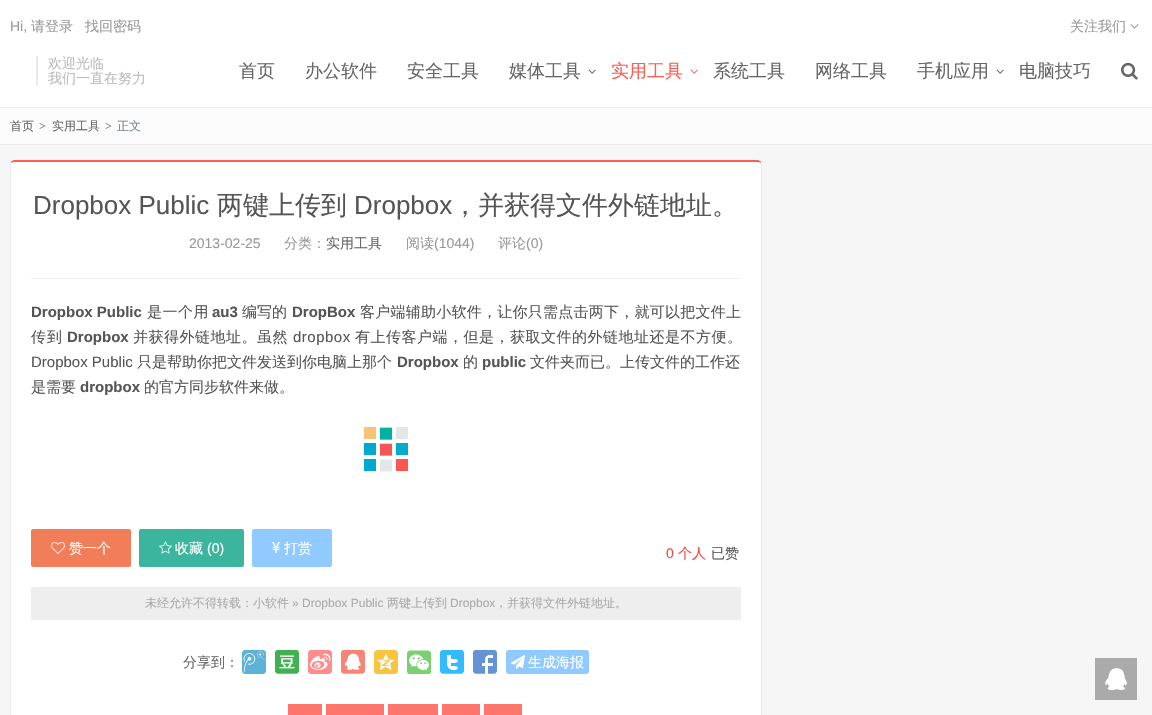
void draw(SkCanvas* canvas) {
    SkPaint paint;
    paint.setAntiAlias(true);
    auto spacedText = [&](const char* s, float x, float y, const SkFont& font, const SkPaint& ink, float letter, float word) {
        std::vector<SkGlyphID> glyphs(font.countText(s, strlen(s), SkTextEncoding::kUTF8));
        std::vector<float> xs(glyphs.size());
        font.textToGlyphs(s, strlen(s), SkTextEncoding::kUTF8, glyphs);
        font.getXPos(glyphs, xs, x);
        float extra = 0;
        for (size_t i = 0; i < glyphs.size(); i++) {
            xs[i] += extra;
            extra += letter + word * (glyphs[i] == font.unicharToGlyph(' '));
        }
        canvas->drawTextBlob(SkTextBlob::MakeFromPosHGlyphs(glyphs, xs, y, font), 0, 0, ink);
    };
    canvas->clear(0xFFF6F6F6);
    paint.setColor(0xFFFFFFFF);
    canvas->drawRect(SkRect::MakeXYWH(0, 0, 1152, 107), paint);
    paint.setColor(0xFFEBEBEB);
    canvas->drawRect(SkRect::MakeXYWH(0, 107, 1152, 1), paint);
    SkFont font1(fontMgr->matchFamilyStyle("Liberation Sans", SkFontStyle::Normal()), 14);
    font1.setSubpixel(true);
    paint.setColor(0xFF999999);
    canvas->drawString("Hi,", 10, 31, font1, paint);
    SkFont font2(fontMgr->matchFamilyStyle("WenQuanYi Zen Hei", SkFontStyle(500, SkFontStyle::kNormal_Width, SkFontStyle::kUpright_Slant)), 14);
    font2.setSubpixel(true);
    canvas->drawString("请登录", 31, 31, font2, paint);
    canvas->drawString("找回密码", 85, 31, font2, paint);
    canvas->drawString("关注我们", 1070, 31, font2, paint);
    canvas->drawImageRect(SkImages::DeferredFromEncodedData(SkData::MakeFromFileName("img1.png")), SkRect::MakeXYWH(1130, 24, 9, 5), SkSamplingOptions());
    paint.setColor(0xFFEAEAEA);
    canvas->drawRect(SkRect::MakeXYWH(36, 56, 2, 30), paint);
    paint.setColor(0xFFBBBBBB);
    canvas->drawString("欢迎光临", 48, 68, font2, paint);
    canvas->drawString("我们一直在努力", 48, 83, font2, paint);
    SkFont font3(fontMgr->matchFamilyStyle("WenQuanYi Zen Hei", SkFontStyle(500, SkFontStyle::kNormal_Width, SkFontStyle::kUpright_Slant)), 18);
    font3.setSubpixel(true);
    paint.setColor(0xFF666666);
    canvas->drawString("首页", 239, 77, font3, paint);
    canvas->drawString("办公软件", 305, 77, font3, paint);
    canvas->drawString("安全工具", 407, 77, font3, paint);
    canvas->drawString("媒体工具", 509, 77, font3, paint);
    canvas->drawImageRect(SkImages::DeferredFromEncodedData(SkData::MakeFromFileName("img2.png")), SkRect::MakeXYWH(588, 69, 8, 5), SkSamplingOptions());
    paint.setColor(0xFFFF5E52);
    canvas->drawString("实用工具", 611, 77, font3, paint);
    canvas->drawImageRect(SkImages::DeferredFromEncodedData(SkData::MakeFromFileName("img3.png")), SkRect::MakeXYWH(690, 69, 8, 5), SkSamplingOptions());
    paint.setColor(0xFF666666);
    canvas->drawString("系统工具", 713, 77, font3, paint);
    canvas->drawString("网络工具", 815, 77, font3, paint);
    canvas->drawString("手机应用", 917, 77, font3, paint);
    canvas->drawImageRect(SkImages::DeferredFromEncodedData(SkData::MakeFromFileName("img2.png")), SkRect::MakeXYWH(996, 69, 8, 5), SkSamplingOptions());
    canvas->drawString("电脑技巧", 1019, 77, font3, paint);
    canvas->drawImageRect(SkImages::DeferredFromEncodedData(SkData::MakeFromFileName("img4.png")), SkRect::MakeXYWH(1121, 62, 17, 18), SkSamplingOptions());
    paint.setColor(0xFFFCFCFC);
    canvas->drawRect(SkRect::MakeXYWH(0, 108, 1152, 36), paint);
    paint.setColor(0xFFEAEAEA);
    canvas->drawRect(SkRect::MakeXYWH(0, 144, 1152, 1), paint);
    SkFont font4(fontMgr->matchFamilyStyle("WenQuanYi Zen Hei", SkFontStyle(500, SkFontStyle::kNormal_Width, SkFontStyle::kUpright_Slant)), 12);
    font4.setSubpixel(true);
    paint.setColor(0xFF666666);
    canvas->drawString("首页", 10, 130, font4, paint);
    SkFont font5(fontMgr->matchFamilyStyle("Liberation Serif", SkFontStyle::Bold()), 12);
    font5.setSubpixel(true);
    paint.setColor(0xFF76838F);
    canvas->drawString(">", 39, 130, font5, paint);
    paint.setColor(0xFF666666);
    canvas->drawString("实用工具", 52, 130, font4, paint);
    paint.setColor(0xFF76838F);
    canvas->drawString(">", 105, 130, font5, paint);
    canvas->drawString("正文", 117, 130, font4, paint);
    paint.setColor(0xFFFFFFFF);
    canvas->drawPath(SkPathBuilder().moveTo(14, 162).lineTo(758, 162).cubicTo(760, 162, 761, 163, 761, 164).lineTo(761, 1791).cubicTo(761, 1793, 760, 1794, 758, 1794).lineTo(14, 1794).cubicTo(12, 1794, 11, 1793, 11, 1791).lineTo(11, 164).cubicTo(11, 163, 12, 162, 14, 162).close().detach(), paint);
    paint.setColor(0xFFFF5E52);
    canvas->drawPath(SkPathBuilder().moveTo(14, 160).cubicTo(13, 160, 12, 161, 11, 162).lineTo(11, 163).lineTo(14, 162).lineTo(758, 162).lineTo(761, 163).lineTo(761, 162).cubicTo(760, 161, 759, 160, 758, 160).close().detach(), paint);
    paint.setColor(0xFFEAEAEA);
    canvas->drawPath(SkPathBuilder().moveTo(762, 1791).lineTo(762, 164).lineTo(761, 162).lineTo(761, 163).lineTo(761, 164).lineTo(761, 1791).lineTo(760, 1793).lineTo(761, 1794).close().detach(), paint);
    canvas->drawPath(SkPathBuilder().moveTo(10, 164).lineTo(10, 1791).lineTo(11, 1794).lineTo(12, 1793).lineTo(11, 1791).lineTo(11, 164).lineTo(11, 163).lineTo(11, 162).close().detach(), paint);
    paint.setColor(0xFFEEEEEE);
    canvas->drawRect(SkRect::MakeXYWH(31, 278, 710, 1), paint);
    SkFont font6(fontMgr->matchFamilyStyle("Liberation Sans", SkFontStyle::Normal()), 26);
    font6.setSubpixel(true);
    paint.setColor(0xFF555555);
    canvas->drawString("Dropbox Public", 33, 214, font6, paint);
    SkFont font7(fontMgr->matchFamilyStyle("WenQuanYi Zen Hei", SkFontStyle(500, SkFontStyle::kNormal_Width, SkFontStyle::kUpright_Slant)), 26);
    font7.setSubpixel(true);
    canvas->drawString("两键上传到", 217, 214, font7, paint);
    canvas->drawString("Dropbox", 354, 214, font6, paint);
    canvas->drawString("，并获得文件外链地址。", 452, 214, font7, paint);
    paint.setColor(0xFF999999);
    canvas->drawString("2013-02-25", 189, 248, font1, paint);
    canvas->drawString("分类：", 284, 248, font2, paint);
    paint.setColor(0xFF666666);
    canvas->drawString("实用工具", 326, 248, font2, paint);
    paint.setColor(0xFF999999);
    canvas->drawString("阅读", 406, 248, font2, paint);
    canvas->drawString("(1044)", 434, 248, font1, paint);
    canvas->drawString("评论", 498, 248, font2, paint);
    canvas->drawString("(0)", 526, 248, font1, paint);
    SkFont font8(fontMgr->matchFamilyStyle("Liberation Sans", SkFontStyle::Bold()), 15);
    font8.setSubpixel(true);
    paint.setColor(0xFF555555);
    canvas->drawString("Dropbox Public", 31, 317, font8, paint);
    SkFont font9(fontMgr->matchFamilyStyle("WenQuanYi Zen Hei", SkFontStyle(500, SkFontStyle::kNormal_Width, SkFontStyle::kUpright_Slant)), 15);
    font9.setSubpixel(true);
    spacedText("是一个用", 147, 317, font9, paint, 0.5f, 0);
    canvas->drawString("au3", 212, 317, font8, paint);
    canvas->drawString("编写的", 242, 317, font9, paint);
    canvas->drawString("DropBox", 292, 317, font8, paint);
    spacedText("客户端辅助小软件，让你只需点击两下，就可以把文件上", 360, 317, font9, paint, 0.25f, 0);
    spacedText("传到", 31, 342, font9, paint, 1, 0);
    canvas->drawString("Dropbox", 67, 342, font8, paint);
    spacedText("并获得外链地址。虽然", 133, 342, font9, paint, 0.5f, 0);
    SkFont font10(fontMgr->matchFamilyStyle("Liberation Sans", SkFontStyle::Normal()), 15);
    font10.setSubpixel(true);
    spacedText("dropbox", 293, 342, font10, paint, 0.5f, 0);
    spacedText("有上传客户端，但是，获取文件的外链地址还是不方便。", 355, 342, font9, paint, 0.5f, 0);
    canvas->drawString("Dropbox Public", 31, 367, font10, paint);
    canvas->drawString("只是帮助你把文件发送到你电脑上那个", 137, 367, font9, paint);
    canvas->drawString("Dropbox", 397, 367, font8, paint);
    canvas->drawString("的", 463, 367, font9, paint);
    canvas->drawString("public", 482, 367, font8, paint);
    canvas->drawString("文件夹而已。上传文件的工作还", 530, 367, font9, paint);
    canvas->drawString("是需要", 31, 392, font9, paint);
    canvas->drawString("dropbox", 80, 392, font8, paint);
    canvas->drawString("的官方同步软件来做。", 144, 392, font9, paint);
    canvas->drawImageRect(SkImages::DeferredFromEncodedData(SkData::MakeFromFileName("img5.png")), SkRect::MakeXYWH(364, 427, 44, 45), SkSamplingOptions());
    paint.setColor(0xFFF17D59);
    canvas->drawRoundRect(SkRect::MakeXYWH(31, 529, 100, 38), 2, 2, paint);
    canvas->drawImageRect(SkImages::DeferredFromEncodedData(SkData::MakeFromFileName("img6.png")), SkRect::MakeXYWH(51, 542, 14, 12), SkSamplingOptions());
    paint.setColor(0xFFFFFFFF);
    canvas->drawString("赞一个", 69, 553, font2, paint);
    paint.setColor(0xFF3BB59D);
    canvas->drawRoundRect(SkRect::MakeXYWH(139, 529, 105, 38), 2, 2, paint);
    canvas->drawImageRect(SkImages::DeferredFromEncodedData(SkData::MakeFromFileName("img7.png")), SkRect::MakeXYWH(159, 541, 13, 13), SkSamplingOptions());
    paint.setColor(0xFFFFFFFF);
    canvas->drawString("收藏", 175, 553, font2, paint);
    canvas->drawString("(0)", 207, 553, font1, paint);
    paint.setColor(0xFF91CAFF);
    canvas->drawRoundRect(SkRect::MakeXYWH(252, 529, 80, 38), 2, 2, paint);
    canvas->drawImageRect(SkImages::DeferredFromEncodedData(SkData::MakeFromFileName("img8.png")), SkRect::MakeXYWH(272, 542, 8, 11), SkSamplingOptions());
    paint.setColor(0xFFFFFFFF);
    canvas->drawString("打赏", 284, 553, font2, paint);
    paint.setColor(0xFFF64540);
    canvas->drawString("0", 666, 558, font1, paint);
    canvas->drawString("个人", 678, 558, font2, paint);
    paint.setColor(0xFF555555);
    canvas->drawString("已赞", 711, 558, font2, paint);
    paint.setColor(0xFFEEEEEE);
    canvas->drawRoundRect(SkRect::MakeXYWH(31, 587, 710, 33), 2, 2, paint);
    paint.setColor(0xFFAAAAAA);
    canvas->drawString("未经允许不得转载：小软件", 145, 607, font4, paint);
    SkFont font11(fontMgr->matchFamilyStyle("Liberation Sans", SkFontStyle::Normal()), 12);
    font11.setSubpixel(true);
    canvas->drawString("» Dropbox Public", 292, 607, font11, paint);
    canvas->drawString("两键上传到", 387, 607, font4, paint);
    canvas->drawString("Dropbox", 450, 607, font11, paint);
    canvas->drawString("，并获得文件外链地址。", 495, 607, font4, paint);
    paint.setColor(0xFF666666);
    canvas->drawString("分享到：", 183, 667, font2, paint);
    canvas->drawImageRect(SkImages::DeferredFromEncodedData(SkData::MakeFromFileName("img9.png")), SkRect::MakeXYWH(242, 650, 24, 24), SkSamplingOptions());
    canvas->drawImageRect(SkImages::DeferredFromEncodedData(SkData::MakeFromFileName("img10.png")), SkRect::MakeXYWH(275, 650, 24, 24), SkSamplingOptions());
    canvas->drawImageRect(SkImages::DeferredFromEncodedData(SkData::MakeFromFileName("img11.png")), SkRect::MakeXYWH(308, 650, 24, 24), SkSamplingOptions());
    canvas->drawImageRect(SkImages::DeferredFromEncodedData(SkData::MakeFromFileName("img12.png")), SkRect::MakeXYWH(341, 650, 24, 24), SkSamplingOptions());
    canvas->drawImageRect(SkImages::DeferredFromEncodedData(SkData::MakeFromFileName("img13.png")), SkRect::MakeXYWH(374, 650, 24, 24), SkSamplingOptions());
    canvas->drawImageRect(SkImages::DeferredFromEncodedData(SkData::MakeFromFileName("img14.png")), SkRect::MakeXYWH(407, 650, 24, 24), SkSamplingOptions());
    canvas->drawImageRect(SkImages::DeferredFromEncodedData(SkData::MakeFromFileName("img15.png")), SkRect::MakeXYWH(440, 650, 24, 24), SkSamplingOptions());
    canvas->drawImageRect(SkImages::DeferredFromEncodedData(SkData::MakeFromFileName("img16.png")), SkRect::MakeXYWH(473, 650, 24, 24), SkSamplingOptions());
    paint.setColor(0xFF91CAFF);
    canvas->drawRoundRect(SkRect::MakeXYWH(506, 650, 83, 24), 3, 3, paint);
    canvas->drawImageRect(SkImages::DeferredFromEncodedData(SkData::MakeFromFileName("img17.png")), SkRect::MakeXYWH(511, 655, 14, 14), SkSamplingOptions());
    paint.setColor(0xFFFFFFFF);
    canvas->drawString("生成海报", 528, 667, font2, paint);
    paint.setColor(0xFFFF766C);
    canvas->drawRect(SkRect::MakeXYWH(288, 704, 34, 11), paint);
    canvas->drawRect(SkRect::MakeXYWH(326, 704, 58, 11), paint);
    canvas->drawRect(SkRect::MakeXYWH(388, 704, 50, 11), paint);
    canvas->drawRect(SkRect::MakeXYWH(442, 704, 38, 11), paint);
    canvas->drawRect(SkRect::MakeXYWH(484, 704, 38, 11), paint);
    paint.setColor(0xFFAAAAAA);
    canvas->drawRect(SkRect::MakeXYWH(1095, 658, 42, 42), paint);
    canvas->drawImageRect(SkImages::DeferredFromEncodedData(SkData::MakeFromFileName("img18.png")), SkRect::MakeXYWH(1105, 668, 22, 23), SkSamplingOptions());
}
